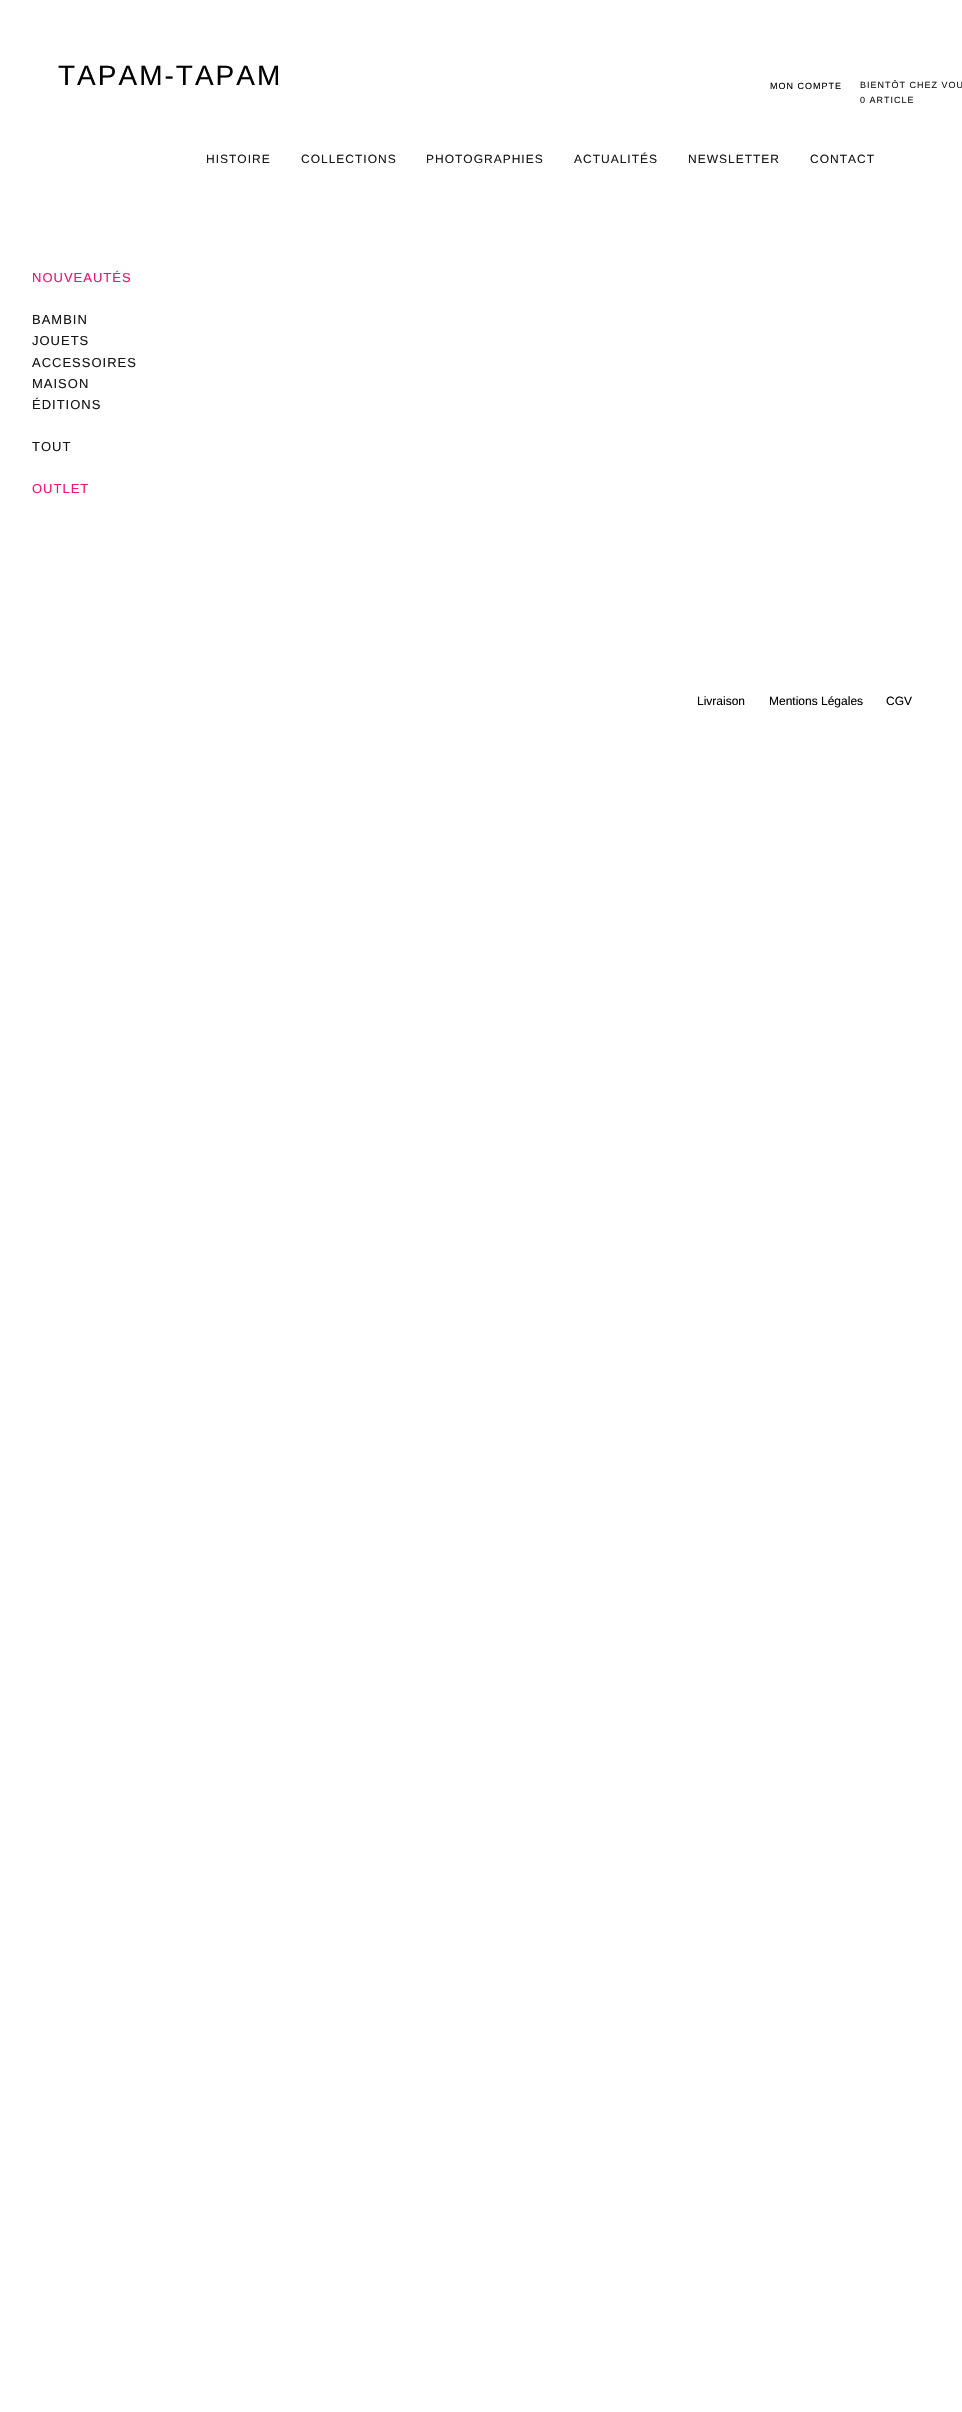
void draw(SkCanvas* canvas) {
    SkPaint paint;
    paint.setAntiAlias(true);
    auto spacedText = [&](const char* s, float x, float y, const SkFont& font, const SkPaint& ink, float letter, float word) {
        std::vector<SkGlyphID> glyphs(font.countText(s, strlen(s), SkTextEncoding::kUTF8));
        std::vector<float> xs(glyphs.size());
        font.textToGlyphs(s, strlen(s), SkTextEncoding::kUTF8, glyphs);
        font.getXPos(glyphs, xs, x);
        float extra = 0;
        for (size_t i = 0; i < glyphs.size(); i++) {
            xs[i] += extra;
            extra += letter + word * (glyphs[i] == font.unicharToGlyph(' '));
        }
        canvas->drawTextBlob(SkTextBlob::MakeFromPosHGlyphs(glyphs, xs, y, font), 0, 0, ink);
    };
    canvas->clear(0xFFFFFFFF);
    SkFont font1(fontMgr->matchFamilyStyle("Liberation Sans", SkFontStyle::Normal()), 28);
    font1.setSubpixel(true);
    paint.setColor(0xFF000000);
    spacedText("TAPAM-TAPAM", 58, 85, font1, paint, 2, 0);
    SkFont font2(fontMgr->matchFamilyStyle("Liberation Sans", SkFontStyle::Normal()), 9);
    font2.setSubpixel(true);
    spacedText("MON COMPTE", 770, 89, font2, paint, 1, 0);
    paint.setColor(0xFF151515);
    spacedText("BIENTÔT CHEZ VOU", 860, 88, font2, paint, 1, 0);
    spacedText("0 ARTICLE", 860, 103, font2, paint, 1, 0);
    SkFont font3(fontMgr->matchFamilyStyle("Liberation Sans", SkFontStyle::Normal()), 12);
    font3.setSubpixel(true);
    spacedText("HISTOIRE", 206, 163, font3, paint, 1, 0);
    spacedText("COLLECTIONS", 301, 163, font3, paint, 1, 0);
    spacedText("PHOTOGRAPHIES", 426, 163, font3, paint, 1, 0);
    spacedText("ACTUALITÉS", 574, 163, font3, paint, 1, 0);
    spacedText("NEWSLETTER", 688, 163, font3, paint, 1, 0);
    spacedText("CONTACT", 810, 163, font3, paint, 1, 0);
    SkFont font4(fontMgr->matchFamilyStyle("Liberation Sans", SkFontStyle::Normal()), 13);
    font4.setSubpixel(true);
    paint.setColor(0xFFF31171);
    spacedText("NOUVEAUTÉS", 32, 282, font4, paint, 1, 0);
    paint.setColor(0xFF151515);
    spacedText("BAMBIN", 32, 324, font4, paint, 1, 0);
    spacedText("JOUETS", 32, 345, font4, paint, 1, 0);
    spacedText("ACCESSOIRES", 32, 367, font4, paint, 1, 0);
    spacedText("MAISON", 32, 388, font4, paint, 1, 0);
    spacedText("ÉDITIONS", 32, 409, font4, paint, 1, 0);
    spacedText("TOUT", 32, 451, font4, paint, 1, 0);
    paint.setColor(0xFFF31171);
    spacedText("OUTLET", 32, 493, font4, paint, 1, 0);
    paint.setColor(0xFF000000);
    canvas->drawString("Livraison", 697, 705, font3, paint);
    canvas->drawString("Mentions Légales", 769, 705, font3, paint);
    canvas->drawString("CGV", 886, 705, font3, paint);
}
